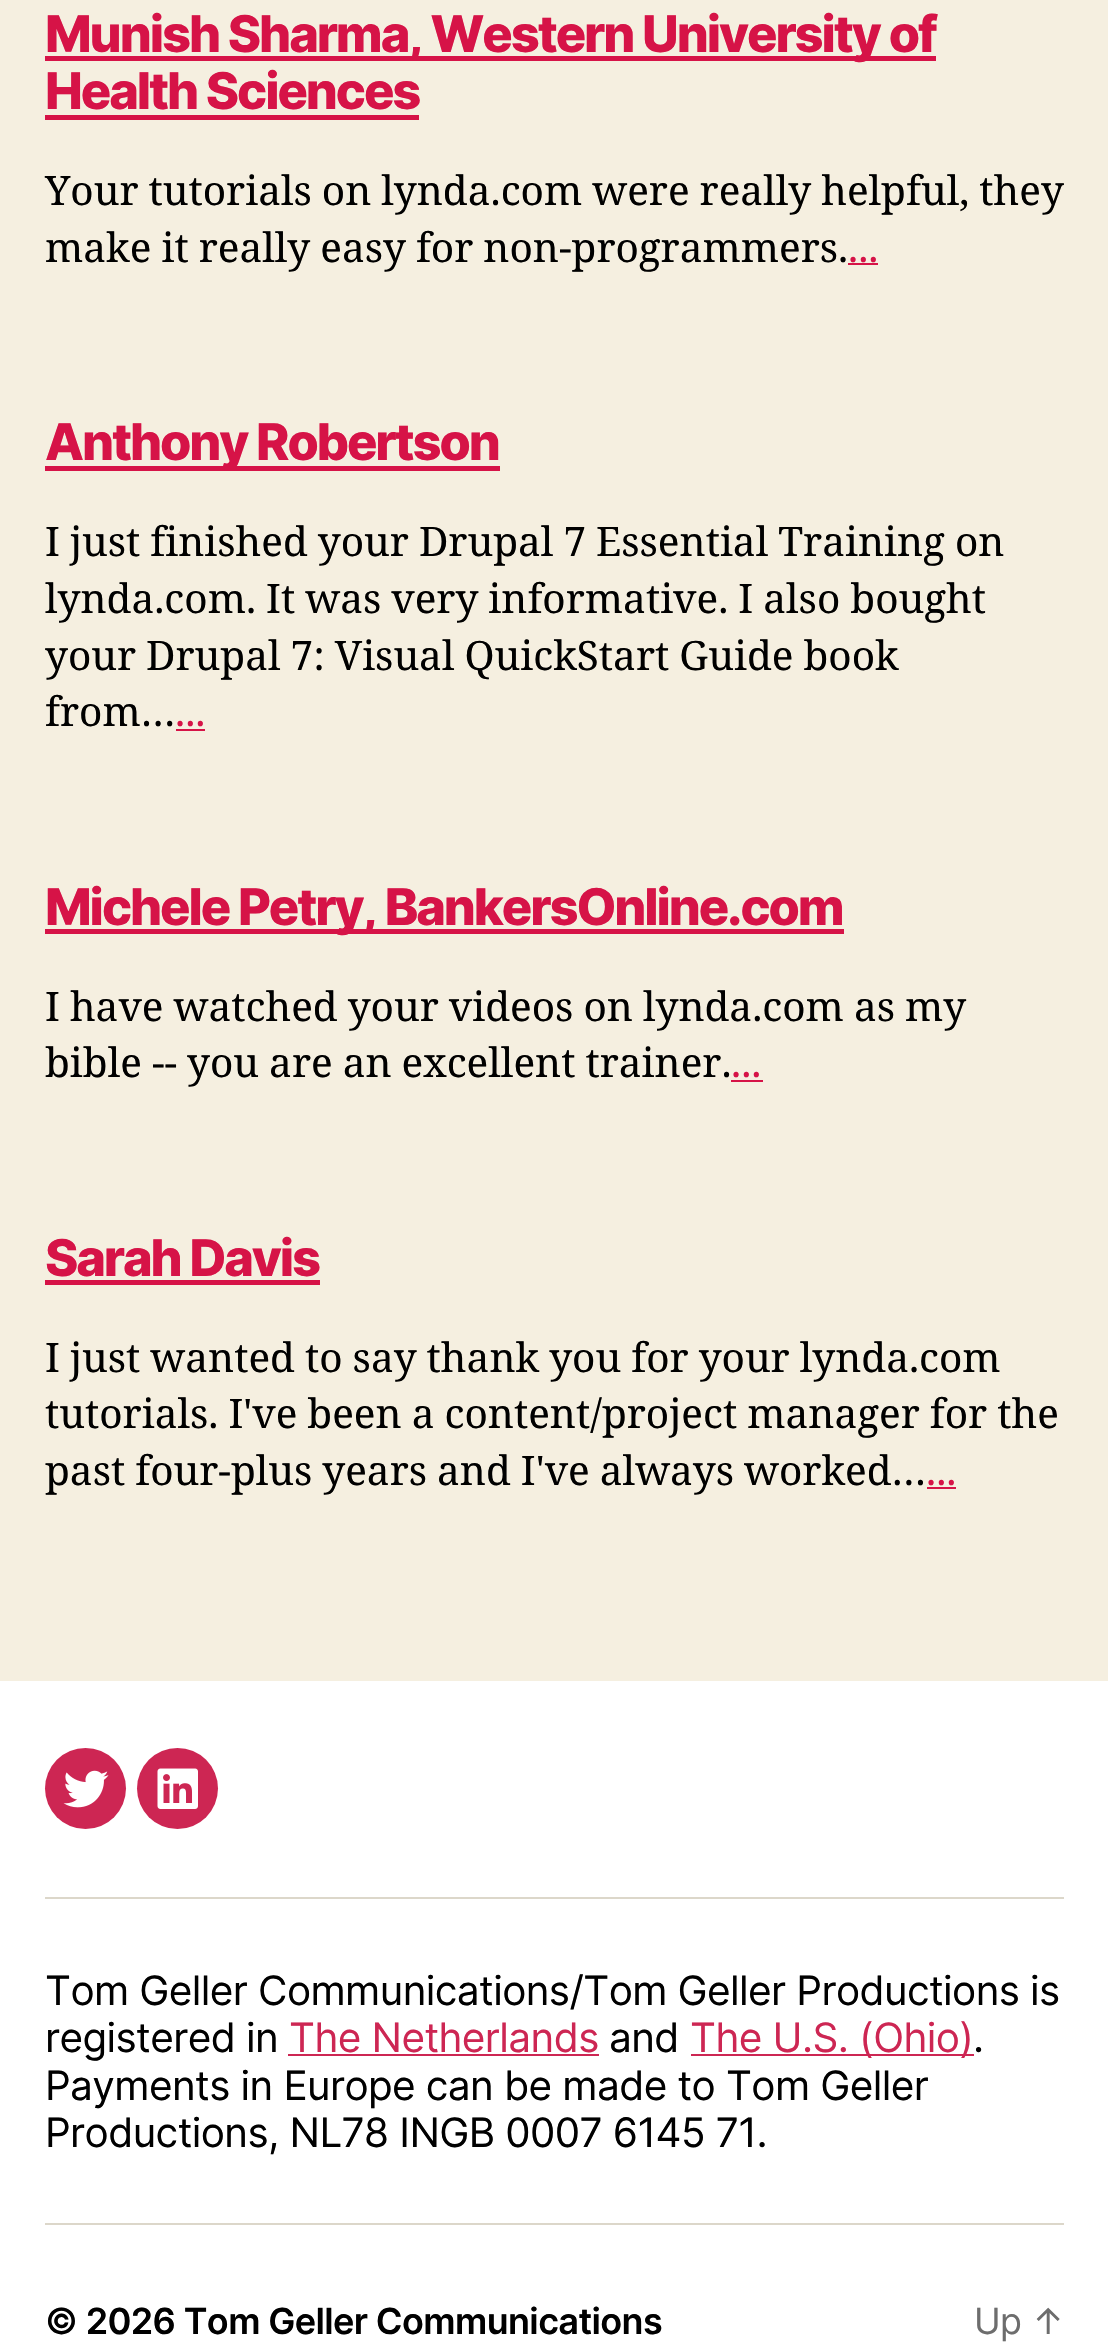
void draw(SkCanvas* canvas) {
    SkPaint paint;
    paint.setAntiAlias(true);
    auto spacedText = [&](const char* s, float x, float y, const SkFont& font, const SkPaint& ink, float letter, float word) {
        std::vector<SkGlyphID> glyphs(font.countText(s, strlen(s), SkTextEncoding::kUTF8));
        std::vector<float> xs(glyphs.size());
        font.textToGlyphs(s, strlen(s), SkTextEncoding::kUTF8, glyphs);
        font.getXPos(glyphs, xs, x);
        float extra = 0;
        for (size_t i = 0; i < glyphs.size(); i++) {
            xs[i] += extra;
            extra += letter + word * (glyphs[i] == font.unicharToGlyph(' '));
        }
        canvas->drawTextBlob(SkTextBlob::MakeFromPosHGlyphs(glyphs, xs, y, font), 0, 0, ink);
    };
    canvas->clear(0xFFF5EFE0);
    paint.setColor(0xFFD61347);
    canvas->drawRect(SkRect::MakeXYWH(45, 56, 891, 5), paint);
    SkFont font1(fontMgr->matchFamilyStyle("Inter", SkFontStyle(800, SkFontStyle::kNormal_Width, SkFontStyle::kUpright_Slant)), 50.6f);
    font1.setSubpixel(true);
    spacedText("Munish Sharma, Western University of", 45, 52, font1, paint, -2.1f, 0);
    spacedText("Health Sciences", 45, 109, font1, paint, -2.1f, 0);
    canvas->drawRect(SkRect::MakeXYWH(45, 115, 374, 5), paint);
    SkFont font2(fontMgr->matchFamilyStyle("Noto Serif", SkFontStyle::Normal()), 40.5f);
    font2.setSubpixel(true);
    paint.setColor(0xFF000000);
    spacedText("Your tutorials on lynda.com were really helpful, they", 45, 205, font2, paint, 0, -0.5f);
    spacedText("make it really easy for non-programmers.", 45, 262, font2, paint, 0, -0.5f);
    paint.setColor(0xFFD61347);
    canvas->drawString("...", 848, 262, font2, paint);
    canvas->drawRect(SkRect::MakeXYWH(848, 263, 30, 2), paint);
    canvas->drawRect(SkRect::MakeXYWH(45, 466, 455, 5), paint);
    spacedText("Anthony Robertson", 45, 460, font1, paint, -2.1f, 0);
    paint.setColor(0xFF000000);
    spacedText("I just finished your Drupal 7 Essential Training on", 45, 556, font2, paint, 0, -0.5f);
    spacedText("lynda.com. It was very informative. I also bought", 45, 613, font2, paint, 0, -0.5f);
    spacedText("your Drupal 7: Visual QuickStart Guide book", 45, 670, font2, paint, 0, -0.5f);
    canvas->drawString("from…", 45, 726, font2, paint);
    paint.setColor(0xFFD61347);
    canvas->drawString("...", 175, 726, font2, paint);
    canvas->drawRect(SkRect::MakeXYWH(176, 729, 29, 2), paint);
    canvas->drawRect(SkRect::MakeXYWH(45, 929, 799, 5), paint);
    spacedText("Michele Petry, BankersOnline.com", 45, 925, font1, paint, -2.1f, 0);
    paint.setColor(0xFF000000);
    spacedText("I have watched your videos on lynda.com as my", 45, 1021, font2, paint, 0, -0.5f);
    spacedText("bible -- you are an excellent trainer.", 45, 1077, font2, paint, 0, -0.5f);
    paint.setColor(0xFFD61347);
    canvas->drawString("...", 731, 1077, font2, paint);
    canvas->drawRect(SkRect::MakeXYWH(731, 1080, 32, 2), paint);
    spacedText("Sarah Davis", 45, 1276, font1, paint, -2.1f, 0);
    canvas->drawRect(SkRect::MakeXYWH(45, 1280, 275, 5), paint);
    paint.setColor(0xFF000000);
    spacedText("I just wanted to say thank you for your lynda.com", 45, 1372, font2, paint, 0, -0.5f);
    spacedText("tutorials. I've been a content/project manager for the", 45, 1428, font2, paint, 0, -0.5f);
    spacedText("past four-plus years and I've always worked…", 45, 1485, font2, paint, 0, -0.5f);
    paint.setColor(0xFFD61347);
    canvas->drawString("...", 926, 1485, font2, paint);
    canvas->drawRect(SkRect::MakeXYWH(927, 1487, 29, 2), paint);
    paint.setColor(0xFFFFFFFF);
    canvas->drawRect(SkRect::MakeXYWH(0, 1681, 1108, 668), paint);
    paint.setColor(0xFFDCD7CA);
    canvas->drawRect(SkRect::MakeXYWH(45, 1897, 1019, 2), paint);
    paint.setColor(0xFFCD2653);
    canvas->drawCircle(85.5f, 1788.5f, 40.5f, paint);
    canvas->drawImageRect(SkImages::DeferredFromEncodedData(SkData::MakeFromFileName("img1.png")), SkRect::MakeXYWH(63, 1770, 46, 38), SkSamplingOptions());
    canvas->drawCircle(177.5f, 1788.5f, 40.5f, paint);
    canvas->drawImageRect(SkImages::DeferredFromEncodedData(SkData::MakeFromFileName("img2.png")), SkRect::MakeXYWH(157, 1768, 41, 41), SkSamplingOptions());
    paint.setColor(0xFFDCD7CA);
    canvas->drawRect(SkRect::MakeXYWH(45, 2223, 1019, 2), paint);
    SkFont font3(fontMgr->matchFamilyStyle("Inter", SkFontStyle::Normal()), 40.5f);
    font3.setSubpixel(true);
    paint.setColor(0xFF000000);
    spacedText("Tom Geller Communications/Tom Geller Productions is", 45, 2005, font3, paint, -0.6f, 0);
    spacedText("registered in", 45, 2052, font3, paint, -0.6f, 0);
    paint.setColor(0xFFCD2653);
    spacedText("The Netherlands", 289, 2052, font3, paint, -0.6f, 0);
    canvas->drawRect(SkRect::MakeXYWH(288, 2054, 311, 2), paint);
    paint.setColor(0xFF000000);
    spacedText("and", 609, 2052, font3, paint, -0.6f, 0);
    paint.setColor(0xFFCD2653);
    canvas->drawRect(SkRect::MakeXYWH(691, 2054, 283, 2), paint);
    spacedText("The U.S. (Ohio)", 690, 2052, font3, paint, -0.6f, 0);
    paint.setColor(0xFF000000);
    spacedText(".", 973, 2052, font3, paint, -0.6f, 0);
    spacedText("Payments in Europe can be made to Tom Geller", 45, 2100, font3, paint, -0.6f, 0);
    spacedText("Productions, NL78 INGB 0007 6145 71.", 45, 2147, font3, paint, -0.6f, 0);
    SkFont font4(fontMgr->matchFamilyStyle("Inter", SkFontStyle(600, SkFontStyle::kNormal_Width, SkFontStyle::kUpright_Slant)), 36);
    font4.setSubpixel(true);
    spacedText("© 2026 Tom Geller Communications", 45, 2334, font4, paint, -0.6f, 0);
    SkFont font5(fontMgr->matchFamilyStyle("Inter", SkFontStyle::Normal()), 36);
    font5.setSubpixel(true);
    paint.setColor(0xFF6D6D6D);
    spacedText("Up ↑", 974, 2334, font5, paint, -0.6f, 0);
}
